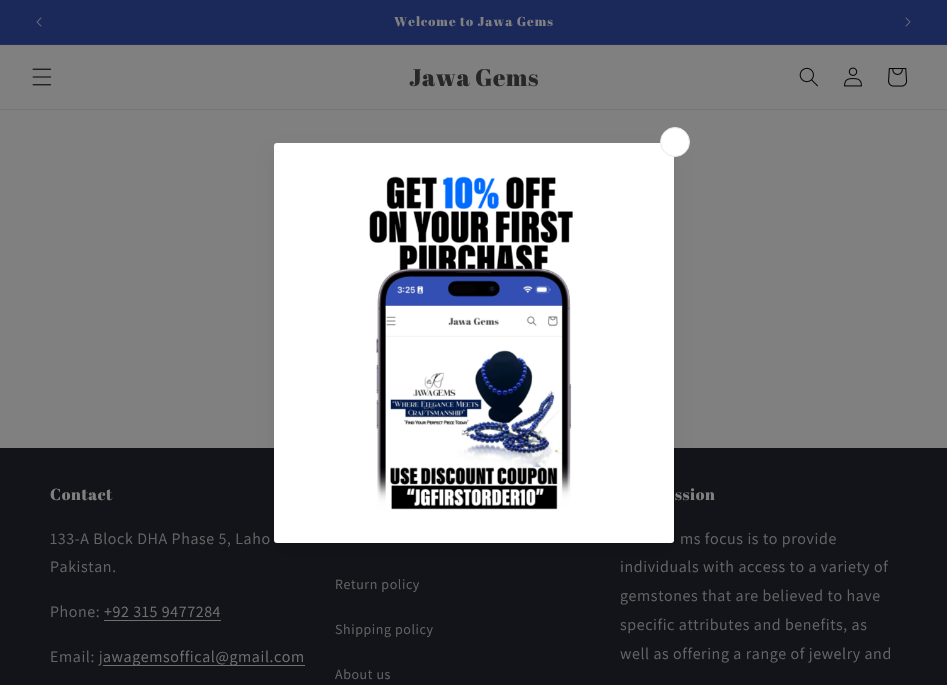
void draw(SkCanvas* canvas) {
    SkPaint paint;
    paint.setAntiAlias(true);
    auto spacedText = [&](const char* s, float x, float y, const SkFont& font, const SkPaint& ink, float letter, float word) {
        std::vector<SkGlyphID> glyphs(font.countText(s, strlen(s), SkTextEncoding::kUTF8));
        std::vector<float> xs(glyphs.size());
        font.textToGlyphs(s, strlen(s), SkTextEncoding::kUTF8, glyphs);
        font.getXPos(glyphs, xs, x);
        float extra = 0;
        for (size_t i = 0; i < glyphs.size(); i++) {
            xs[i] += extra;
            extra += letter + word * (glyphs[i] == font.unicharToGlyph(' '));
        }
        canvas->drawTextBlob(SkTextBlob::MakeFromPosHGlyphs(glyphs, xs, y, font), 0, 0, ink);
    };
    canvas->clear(0xFF808080);
    paint.setColor(0xFF1A285A);
    canvas->drawRect(SkRect::MakeXYWH(0, 0, 947, 44), paint);
    paint.setColor(0xFF222F5D);
    canvas->drawRect(SkRect::MakeXYWH(0, 44, 947, 1), paint);
    canvas->drawImageRect(SkImages::DeferredFromEncodedData(SkData::MakeFromFileName("img1.png")), SkRect::MakeXYWH(36, 17, 6, 10), SkSamplingOptions());
    SkFont font1(fontMgr->matchFamilyStyle("Abril Fatface", SkFontStyle::Normal()), 13);
    font1.setSubpixel(true);
    paint.setColor(0xFF808080);
    spacedText("Welcome to Jawa Gems", 394, 26, font1, paint, 1, 0);
    canvas->drawImageRect(SkImages::DeferredFromEncodedData(SkData::MakeFromFileName("img2.png")), SkRect::MakeXYWH(905, 17, 6, 10), SkSamplingOptions());
    paint.setColor(0xFF767676);
    canvas->drawRect(SkRect::MakeXYWH(0, 109, 947, 1), paint);
    canvas->drawImageRect(SkImages::DeferredFromEncodedData(SkData::MakeFromFileName("img3.png")), SkRect::MakeXYWH(32, 68, 20, 18), SkSamplingOptions());
    SkFont font2(fontMgr->matchFamilyStyle("Abril Fatface", SkFontStyle::Normal()), 24);
    font2.setSubpixel(true);
    paint.setColor(0xFF272727);
    spacedText("Jawa Gems", 409, 86, font2, paint, 0.6f, 0);
    canvas->drawImageRect(SkImages::DeferredFromEncodedData(SkData::MakeFromFileName("img4.png")), SkRect::MakeXYWH(799, 67, 19, 20), SkSamplingOptions());
    canvas->drawImageRect(SkImages::DeferredFromEncodedData(SkData::MakeFromFileName("img5.png")), SkRect::MakeXYWH(844, 67, 18, 20), SkSamplingOptions());
    canvas->drawImageRect(SkImages::DeferredFromEncodedData(SkData::MakeFromFileName("img6.png")), SkRect::MakeXYWH(888, 68, 20, 19), SkSamplingOptions());
    paint.setColor(0xFF12141A);
    canvas->drawRect(SkRect::MakeXYWH(0, 448, 947, 237), paint);
    paint.setColor(0x1A000000);
    paint.setMaskFilter(SkMaskFilter::MakeBlur(kNormal_SkBlurStyle, 7.5f));
    canvas->drawRect(SkRect::MakeXYWH(277, 156, 394, 394), paint);
    paint.setMaskFilter(nullptr);
    paint.setColor(0xFFFFFFFF);
    canvas->drawRoundRect(SkRect::MakeXYWH(274, 143, 400, 400), 3, 3, paint);
    canvas->drawImageRect(SkImages::DeferredFromEncodedData(SkData::MakeFromFileName("img7.png")), SkRect::MakeXYWH(369, 176, 204, 334), SkSamplingOptions());
    canvas->drawCircle(675, 142, 14.5f, paint);
    paint.setStyle(SkPaint::kStroke_Style);
    paint.setStrokeWidth(1);
    paint.setColor(0xFFE2E8F0);
    canvas->drawCircle(675, 142, 14.5f, paint);
    SkFont font3(fontMgr->matchFamilyStyle("Abril Fatface", SkFontStyle::Normal()), 16);
    font3.setSubpixel(true);
    paint.setStyle(SkPaint::kFill_Style);
    paint.setColor(0xFF808080);
    spacedText("Contact", 50, 500, font3, paint, 0.6f, 0);
    SkFont font4(fontMgr->matchFamilyStyle("Assistant", SkFontStyle::Normal()), 16);
    font4.setSubpixel(true);
    paint.setColor(0xFF646566);
    spacedText("133-A Block DHA Phase 5, Laho", 50, 544, font4, paint, 0.6f, 0);
    spacedText("Pakistan.", 50, 572, font4, paint, 0.6f, 0);
    spacedText("Phone:", 50, 617, font4, paint, 0.6f, 0);
    paint.setColor(0xFF6F7070);
    spacedText("+92 315 9477284", 104, 617, font4, paint, 0.6f, 0);
    canvas->drawRect(SkRect::MakeXYWH(104, 620, 117, 1), paint);
    paint.setColor(0xFF646566);
    spacedText("Email: j", 50, 662, font4, paint, 0.6f, 0);
    paint.setColor(0xFF6F7070);
    canvas->drawRect(SkRect::MakeXYWH(103, 665, 202, 1), paint);
    spacedText("awagemsoffical@gmail.com", 103, 662, font4, paint, 0.6f, 0);
    SkFont font5(fontMgr->matchFamilyStyle("Assistant", SkFontStyle::Normal()), 14);
    font5.setSubpixel(true);
    paint.setColor(0xFF646566);
    spacedText("Return policy", 335, 589, font5, paint, 0.6f, 0);
    spacedText("Shipping policy", 335, 634, font5, paint, 0.6f, 0);
    spacedText("About us", 335, 679, font5, paint, 0.6f, 0);
    paint.setColor(0xFF808080);
    spacedText("ssion", 675, 500, font3, paint, 0.6f, 0);
    paint.setColor(0xFF646566);
    spacedText("ms focus is to provide", 680, 544, font4, paint, 0.6f, 0);
    spacedText("individuals with access to a variety of", 620, 572, font4, paint, 0.6f, 0);
    spacedText("gemstones that are believed to have", 620, 601, font4, paint, 0.6f, 0);
    spacedText("specific attributes and benefits, as", 620, 630, font4, paint, 0.6f, 0);
    spacedText("well as offering a range of jewelry and", 620, 659, font4, paint, 0.6f, 0);
}
